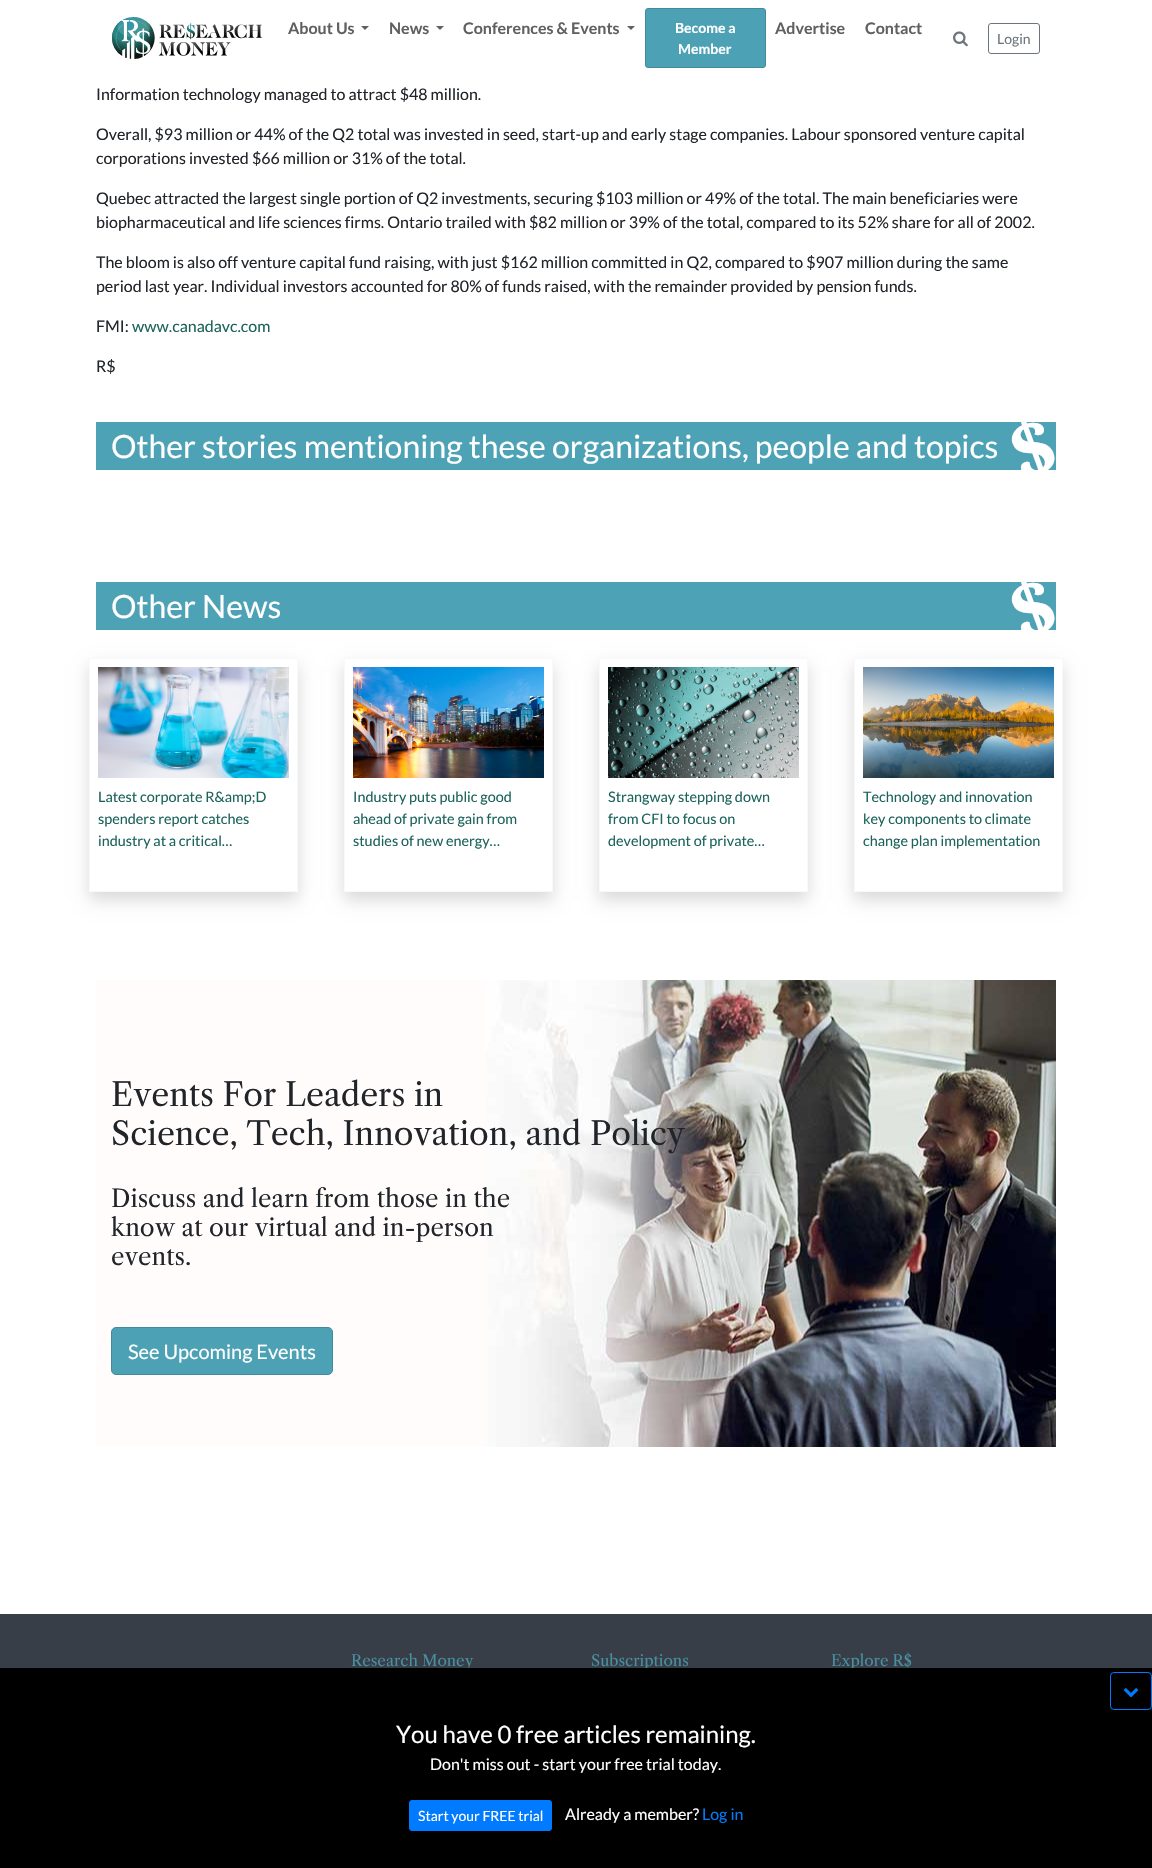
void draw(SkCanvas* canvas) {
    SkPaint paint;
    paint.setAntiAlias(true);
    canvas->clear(0xFFFFFFFF);
    canvas->drawImageRect(SkImages::DeferredFromEncodedData(SkData::MakeFromFileName("img1.png")), SkRect::MakeXYWH(112, 17, 150, 42), SkSamplingOptions());
    SkFont font1(fontMgr->matchFamilyStyle("Lato", SkFontStyle::Bold()), 16);
    font1.setSubpixel(true);
    paint.setColor(0xFF606060);
    canvas->drawString("About Us", 288, 34, font1, paint);
    canvas->drawPath(SkPathBuilder().moveTo(361, 26).lineTo(369, 26).lineTo(365, 30).close().detach(), paint);
    canvas->drawString("News", 389, 34, font1, paint);
    canvas->drawPath(SkPathBuilder().moveTo(436, 26).lineTo(444, 26).lineTo(440, 30).close().detach(), paint);
    canvas->drawString("Conferences & Events", 463, 34, font1, paint);
    canvas->drawPath(SkPathBuilder().moveTo(627, 26).lineTo(635, 26).lineTo(631, 30).close().detach(), paint);
    paint.setColor(0xFF4CA1B5);
    canvas->drawRoundRect(SkRect::MakeXYWH(645.5f, 8.5f, 120, 59), 2.5f, 2.5f, paint);
    paint.setStyle(SkPaint::kStroke_Style);
    paint.setStrokeWidth(1);
    paint.setColor(0xFF408C9E);
    canvas->drawRoundRect(SkRect::MakeXYWH(645.5f, 8.5f, 120, 59), 2.5f, 2.5f, paint);
    SkFont font2(fontMgr->matchFamilyStyle("Lato", SkFontStyle::Bold()), 14);
    font2.setSubpixel(true);
    paint.setStyle(SkPaint::kFill_Style);
    paint.setColor(0xFFFFFFFF);
    canvas->drawString("Become a", 675, 33, font2, paint);
    canvas->drawString("Member", 678, 54, font2, paint);
    paint.setColor(0xFF606060);
    canvas->drawString("Advertise", 775, 34, font1, paint);
    canvas->drawString("Contact", 865, 34, font1, paint);
    canvas->drawImageRect(SkImages::DeferredFromEncodedData(SkData::MakeFromFileName("img2.png")), SkRect::MakeXYWH(953, 31, 15, 16), SkSamplingOptions());
    paint.setStyle(SkPaint::kStroke_Style);
    paint.setColor(0xFF6C757D);
    canvas->drawRoundRect(SkRect::MakeXYWH(988.5f, 23.5f, 51, 30), 2.5f, 2.5f, paint);
    SkFont font3(fontMgr->matchFamilyStyle("Lato", SkFontStyle::Normal()), 14);
    font3.setSubpixel(true);
    paint.setStyle(SkPaint::kFill_Style);
    canvas->drawString("Login", 997, 44, font3, paint);
    SkFont font4(fontMgr->matchFamilyStyle("Lato", SkFontStyle::Normal()), 16);
    font4.setSubpixel(true);
    paint.setColor(0xFF212529);
    canvas->drawString("Information technology managed to attract $48 million.", 96, 100, font4, paint);
    canvas->drawString("Overall, $93 million or 44% of the Q2 total was invested in seed, start-up and early stage companies. Labour sponsored venture capital", 96, 140, font4, paint);
    canvas->drawString("corporations invested $66 million or 31% of the total.", 96, 164, font4, paint);
    canvas->drawString("Quebec attracted the largest single portion of Q2 investments, securing $103 million or 49% of the total. The main beneficiaries were", 96, 204, font4, paint);
    canvas->drawString("biopharmaceutical and life sciences firms. Ontario trailed with $82 million or 39% of the total, compared to its 52% share for all of 2002.", 96, 228, font4, paint);
    canvas->drawString("The bloom is also off venture capital fund raising, with just $162 million committed in Q2, compared to $907 million during the same", 96, 268, font4, paint);
    canvas->drawString("period last year. Individual investors accounted for 80% of funds raised, with the remainder provided by pension funds.", 96, 292, font4, paint);
    canvas->drawString("FMI:", 96, 332, font4, paint);
    paint.setColor(0xFF1C645B);
    canvas->drawString("www.canadavc.com", 132, 332, font4, paint);
    paint.setColor(0xFF212529);
    canvas->drawString("R$", 96, 372, font4, paint);
    paint.setColor(0xFF4DA2B6);
    canvas->drawRect(SkRect::MakeXYWH(96, 422, 960, 48), paint);
    SkFont font5(fontMgr->matchFamilyStyle("Lato", SkFontStyle::Normal()), 32);
    font5.setSubpixel(true);
    paint.setColor(0xFFFFFFFF);
    canvas->drawString("Other stories mentioning these organizations, people and topics", 111, 458, font5, paint);
    SkFont font6(fontMgr->matchFamilyStyle("Caladea", SkFontStyle::Bold()), 86);
    font6.setSubpixel(true);
    canvas->save();
    canvas->rotate(-20, 1020, 484);
    canvas->drawString("$", 1020, 484, font6, paint);
    canvas->restore();
    paint.setColor(0xFF4DA2B6);
    canvas->drawRect(SkRect::MakeXYWH(96, 582, 960, 48), paint);
    paint.setColor(0xFFFFFFFF);
    canvas->drawString("Other News", 111, 618, font5, paint);
    canvas->save();
    canvas->rotate(-20, 1020, 644);
    canvas->drawString("$", 1020, 644, font6, paint);
    canvas->restore();
    canvas->save();
    canvas->clipPath(SkPathBuilder(SkPathFillType::kEvenOdd).moveTo(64, 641).lineTo(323, 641).lineTo(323, 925).lineTo(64, 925).close().moveTo(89, 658).lineTo(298, 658).lineTo(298, 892).lineTo(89, 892).close().detach(), true);
    paint.setColor(0x26000000);
    paint.setMaskFilter(SkMaskFilter::MakeBlur(kNormal_SkBlurStyle, 8));
    canvas->drawRect(SkRect::MakeXYWH(89, 666, 209, 234), paint);
    paint.setMaskFilter(nullptr);
    canvas->restore();
    paint.setStyle(SkPaint::kStroke_Style);
    paint.setColor(0xFFF8F9FA);
    canvas->drawRect(SkRect::MakeXYWH(89.5f, 658.5f, 208, 233), paint);
    canvas->drawImageRect(SkImages::DeferredFromEncodedData(SkData::MakeFromFileName("img3.png")), SkRect::MakeXYWH(98, 667, 191, 111), SkSamplingOptions());
    SkFont font7(fontMgr->matchFamilyStyle("Lato", SkFontStyle::Normal()), 14.4f);
    font7.setSubpixel(true);
    paint.setStyle(SkPaint::kFill_Style);
    paint.setColor(0xFF1C645B);
    canvas->drawString("Latest corporate R&amp;D", 98, 802, font7, paint);
    canvas->drawString("spenders report catches", 98, 824, font7, paint);
    canvas->drawString("industry at a critical…", 98, 846, font7, paint);
    canvas->save();
    canvas->clipPath(SkPathBuilder(SkPathFillType::kEvenOdd).moveTo(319, 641).lineTo(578, 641).lineTo(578, 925).lineTo(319, 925).close().moveTo(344, 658).lineTo(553, 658).lineTo(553, 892).lineTo(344, 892).close().detach(), true);
    paint.setColor(0x26000000);
    paint.setMaskFilter(SkMaskFilter::MakeBlur(kNormal_SkBlurStyle, 8));
    canvas->drawRect(SkRect::MakeXYWH(344, 666, 209, 234), paint);
    paint.setMaskFilter(nullptr);
    canvas->restore();
    paint.setStyle(SkPaint::kStroke_Style);
    paint.setColor(0xFFF8F9FA);
    canvas->drawRect(SkRect::MakeXYWH(344.5f, 658.5f, 208, 233), paint);
    canvas->drawImageRect(SkImages::DeferredFromEncodedData(SkData::MakeFromFileName("img4.png")), SkRect::MakeXYWH(353, 667, 191, 111), SkSamplingOptions());
    paint.setStyle(SkPaint::kFill_Style);
    paint.setColor(0xFF1C645B);
    canvas->drawString("Industry puts public good", 353, 802, font7, paint);
    canvas->drawString("ahead of private gain from", 353, 824, font7, paint);
    canvas->drawString("studies of new energy…", 353, 846, font7, paint);
    canvas->save();
    canvas->clipPath(SkPathBuilder(SkPathFillType::kEvenOdd).moveTo(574, 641).lineTo(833, 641).lineTo(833, 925).lineTo(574, 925).close().moveTo(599, 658).lineTo(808, 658).lineTo(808, 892).lineTo(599, 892).close().detach(), true);
    paint.setColor(0x26000000);
    paint.setMaskFilter(SkMaskFilter::MakeBlur(kNormal_SkBlurStyle, 8));
    canvas->drawRect(SkRect::MakeXYWH(599, 666, 209, 234), paint);
    paint.setMaskFilter(nullptr);
    canvas->restore();
    paint.setStyle(SkPaint::kStroke_Style);
    paint.setColor(0xFFF8F9FA);
    canvas->drawRect(SkRect::MakeXYWH(599.5f, 658.5f, 208, 233), paint);
    canvas->drawImageRect(SkImages::DeferredFromEncodedData(SkData::MakeFromFileName("img5.png")), SkRect::MakeXYWH(608, 667, 191, 111), SkSamplingOptions());
    paint.setStyle(SkPaint::kFill_Style);
    paint.setColor(0xFF1C645B);
    canvas->drawString("Strangway stepping down", 608, 802, font7, paint);
    canvas->drawString("from CFI to focus on", 608, 824, font7, paint);
    canvas->drawString("development of private…", 608, 846, font7, paint);
    canvas->save();
    canvas->clipPath(SkPathBuilder(SkPathFillType::kEvenOdd).moveTo(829, 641).lineTo(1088, 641).lineTo(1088, 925).lineTo(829, 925).close().moveTo(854, 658).lineTo(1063, 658).lineTo(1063, 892).lineTo(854, 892).close().detach(), true);
    paint.setColor(0x26000000);
    paint.setMaskFilter(SkMaskFilter::MakeBlur(kNormal_SkBlurStyle, 8));
    canvas->drawRect(SkRect::MakeXYWH(854, 666, 209, 234), paint);
    paint.setMaskFilter(nullptr);
    canvas->restore();
    paint.setStyle(SkPaint::kStroke_Style);
    paint.setColor(0xFFF8F9FA);
    canvas->drawRect(SkRect::MakeXYWH(854.5f, 658.5f, 208, 233), paint);
    canvas->drawImageRect(SkImages::DeferredFromEncodedData(SkData::MakeFromFileName("img6.png")), SkRect::MakeXYWH(863, 667, 191, 111), SkSamplingOptions());
    paint.setStyle(SkPaint::kFill_Style);
    paint.setColor(0xFF1C645B);
    canvas->drawString("Technology and innovation", 863, 802, font7, paint);
    canvas->drawString("key components to climate", 863, 824, font7, paint);
    canvas->drawString("change plan implementation", 863, 846, font7, paint);
    paint.setColor(0xFFFFFCFB);
    canvas->drawRect(SkRect::MakeXYWH(96, 980, 390, 467), paint);
    canvas->drawImageRect(SkImages::DeferredFromEncodedData(SkData::MakeFromFileName("img7.png")), SkRect::MakeXYWH(486, 980, 570, 467), SkSamplingOptions());
    SkFont font8(fontMgr->matchFamilyStyle("Libre Caslon Text", SkFontStyle::Normal()), 32);
    font8.setSubpixel(true);
    paint.setColor(0xFF212529);
    canvas->drawString("Events For Leaders in", 111, 1106, font8, paint);
    canvas->drawString("Science, Tech, Innovation, and Policy", 111, 1145, font8, paint);
    SkFont font9(fontMgr->matchFamilyStyle("Libre Caslon Text", SkFontStyle::Normal()), 24);
    font9.setSubpixel(true);
    canvas->drawString("Discuss and learn from those in the", 111, 1207, font9, paint);
    canvas->drawString("know at our virtual and in-person", 111, 1236, font9, paint);
    canvas->drawString("events.", 111, 1265, font9, paint);
    paint.setColor(0xFF4CA1B5);
    canvas->drawRoundRect(SkRect::MakeXYWH(111.5f, 1327.5f, 221, 47), 4.5f, 4.5f, paint);
    paint.setStyle(SkPaint::kStroke_Style);
    paint.setColor(0xFF408C9E);
    canvas->drawRoundRect(SkRect::MakeXYWH(111.5f, 1327.5f, 221, 47), 4.5f, 4.5f, paint);
    SkFont font10(fontMgr->matchFamilyStyle("Lato", SkFontStyle::Normal()), 20);
    font10.setSubpixel(true);
    paint.setStyle(SkPaint::kFill_Style);
    paint.setColor(0xFFFFFFFF);
    canvas->drawString("See Upcoming Events", 128, 1359, font10, paint);
    paint.setColor(0xFF373E47);
    canvas->drawRect(SkRect::MakeXYWH(0, 1614, 1152, 54), paint);
    SkFont font11(fontMgr->matchFamilyStyle("Libre Caslon Text", SkFontStyle::Normal()), 15.25f);
    font11.setSubpixel(true);
    paint.setColor(0xFF4890A2);
    canvas->drawString("Research Money", 351, 1666, font11, paint);
    canvas->drawString("Subscriptions", 591, 1666, font11, paint);
    canvas->drawString("Explore R$", 831, 1666, font11, paint);
    paint.setColor(0xFF000000);
    canvas->drawRect(SkRect::MakeXYWH(0, 1668, 1152, 200), paint);
    paint.setStyle(SkPaint::kStroke_Style);
    paint.setColor(0xFF007BFF);
    canvas->drawRoundRect(SkRect::MakeXYWH(1110.5f, 1672.5f, 41, 37), 3.5f, 3.5f, paint);
    canvas->drawImageRect(SkImages::DeferredFromEncodedData(SkData::MakeFromFileName("img8.png")), SkRect::MakeXYWH(1123, 1688, 16, 10), SkSamplingOptions());
    SkFont font12(fontMgr->matchFamilyStyle("Lato", SkFontStyle::Normal()), 24);
    font12.setSubpixel(true);
    paint.setStyle(SkPaint::kFill_Style);
    paint.setColor(0xFFFFFFFF);
    canvas->drawString("You have 0 free articles remaining.", 396, 1743, font12, paint);
    canvas->drawString("Don't miss out - start your free trial today.", 430, 1770, font4, paint);
    paint.setColor(0xFF007BFF);
    canvas->drawRoundRect(SkRect::MakeXYWH(409.5f, 1800.5f, 142, 30), 2.5f, 2.5f, paint);
    paint.setStyle(SkPaint::kStroke_Style);
    canvas->drawRoundRect(SkRect::MakeXYWH(409.5f, 1800.5f, 142, 30), 2.5f, 2.5f, paint);
    paint.setStyle(SkPaint::kFill_Style);
    paint.setColor(0xFFFFFFFF);
    canvas->drawString("Start your FREE trial", 418, 1821, font3, paint);
    canvas->drawString("Already a member?", 565, 1820, font4, paint);
    paint.setColor(0xFF007BFF);
    canvas->drawString("Log in", 702, 1820, font4, paint);
}
